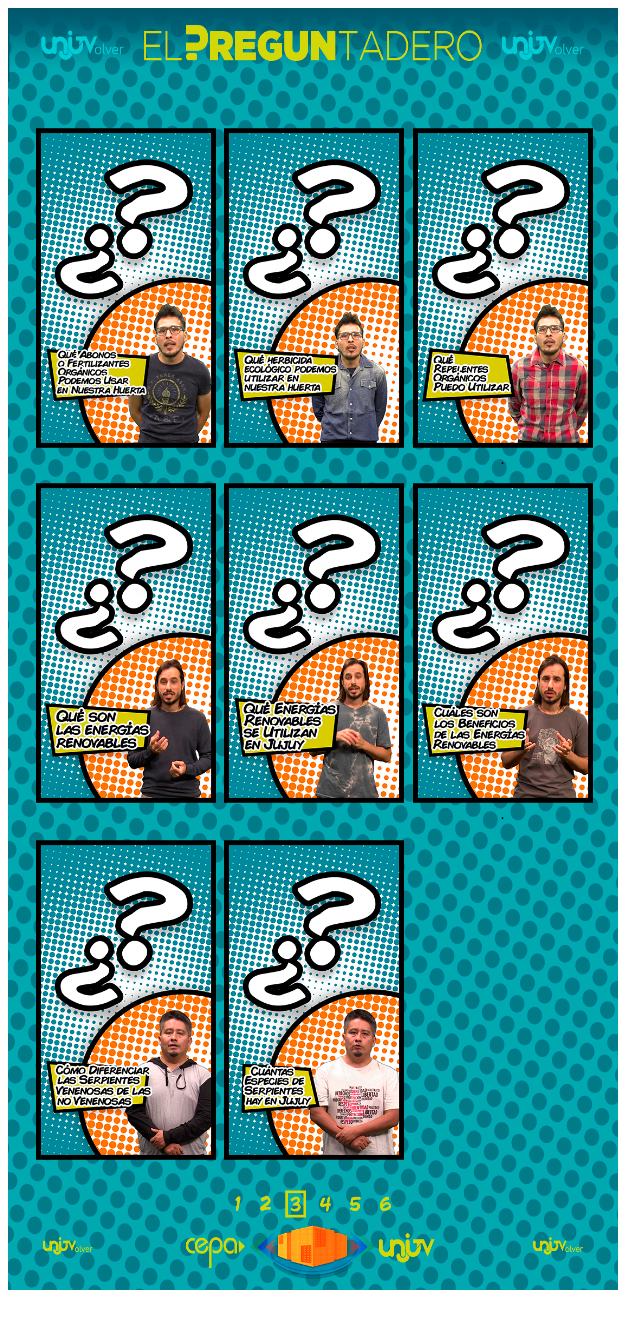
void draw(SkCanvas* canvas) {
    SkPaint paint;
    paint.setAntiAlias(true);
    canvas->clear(0xFFFFFFFF);
    canvas->drawImageRect(SkImages::DeferredFromEncodedData(SkData::MakeFromFileName("img1.png")), SkRect::MakeXYWH(8, 8, 610, 1282), SkSamplingOptions());
    canvas->drawImageRect(SkImages::DeferredFromEncodedData(SkData::MakeFromFileName("img2.png")), SkRect::MakeXYWH(36, 128, 180, 320), SkSamplingOptions());
    canvas->drawImageRect(SkImages::DeferredFromEncodedData(SkData::MakeFromFileName("img3.png")), SkRect::MakeXYWH(224, 128, 180, 320), SkSamplingOptions());
    canvas->drawImageRect(SkImages::DeferredFromEncodedData(SkData::MakeFromFileName("img4.png")), SkRect::MakeXYWH(413, 128, 180, 320), SkSamplingOptions());
    SkFont font1(fontMgr->matchFamilyStyle("Barlow Condensed", SkFontStyle::Normal()), 16);
    font1.setSubpixel(true);
    paint.setColor(0xFF000000);
    canvas->drawString(".", 501, 464, font1, paint);
    canvas->drawImageRect(SkImages::DeferredFromEncodedData(SkData::MakeFromFileName("img5.png")), SkRect::MakeXYWH(36, 483, 180, 320), SkSamplingOptions());
    canvas->drawImageRect(SkImages::DeferredFromEncodedData(SkData::MakeFromFileName("img6.png")), SkRect::MakeXYWH(224, 483, 180, 320), SkSamplingOptions());
    canvas->drawImageRect(SkImages::DeferredFromEncodedData(SkData::MakeFromFileName("img7.png")), SkRect::MakeXYWH(413, 483, 180, 320), SkSamplingOptions());
    canvas->drawString(".", 501, 819, font1, paint);
    canvas->drawImageRect(SkImages::DeferredFromEncodedData(SkData::MakeFromFileName("img8.png")), SkRect::MakeXYWH(36, 840, 180, 320), SkSamplingOptions());
    canvas->drawImageRect(SkImages::DeferredFromEncodedData(SkData::MakeFromFileName("img9.png")), SkRect::MakeXYWH(224, 840, 180, 320), SkSamplingOptions());
}
